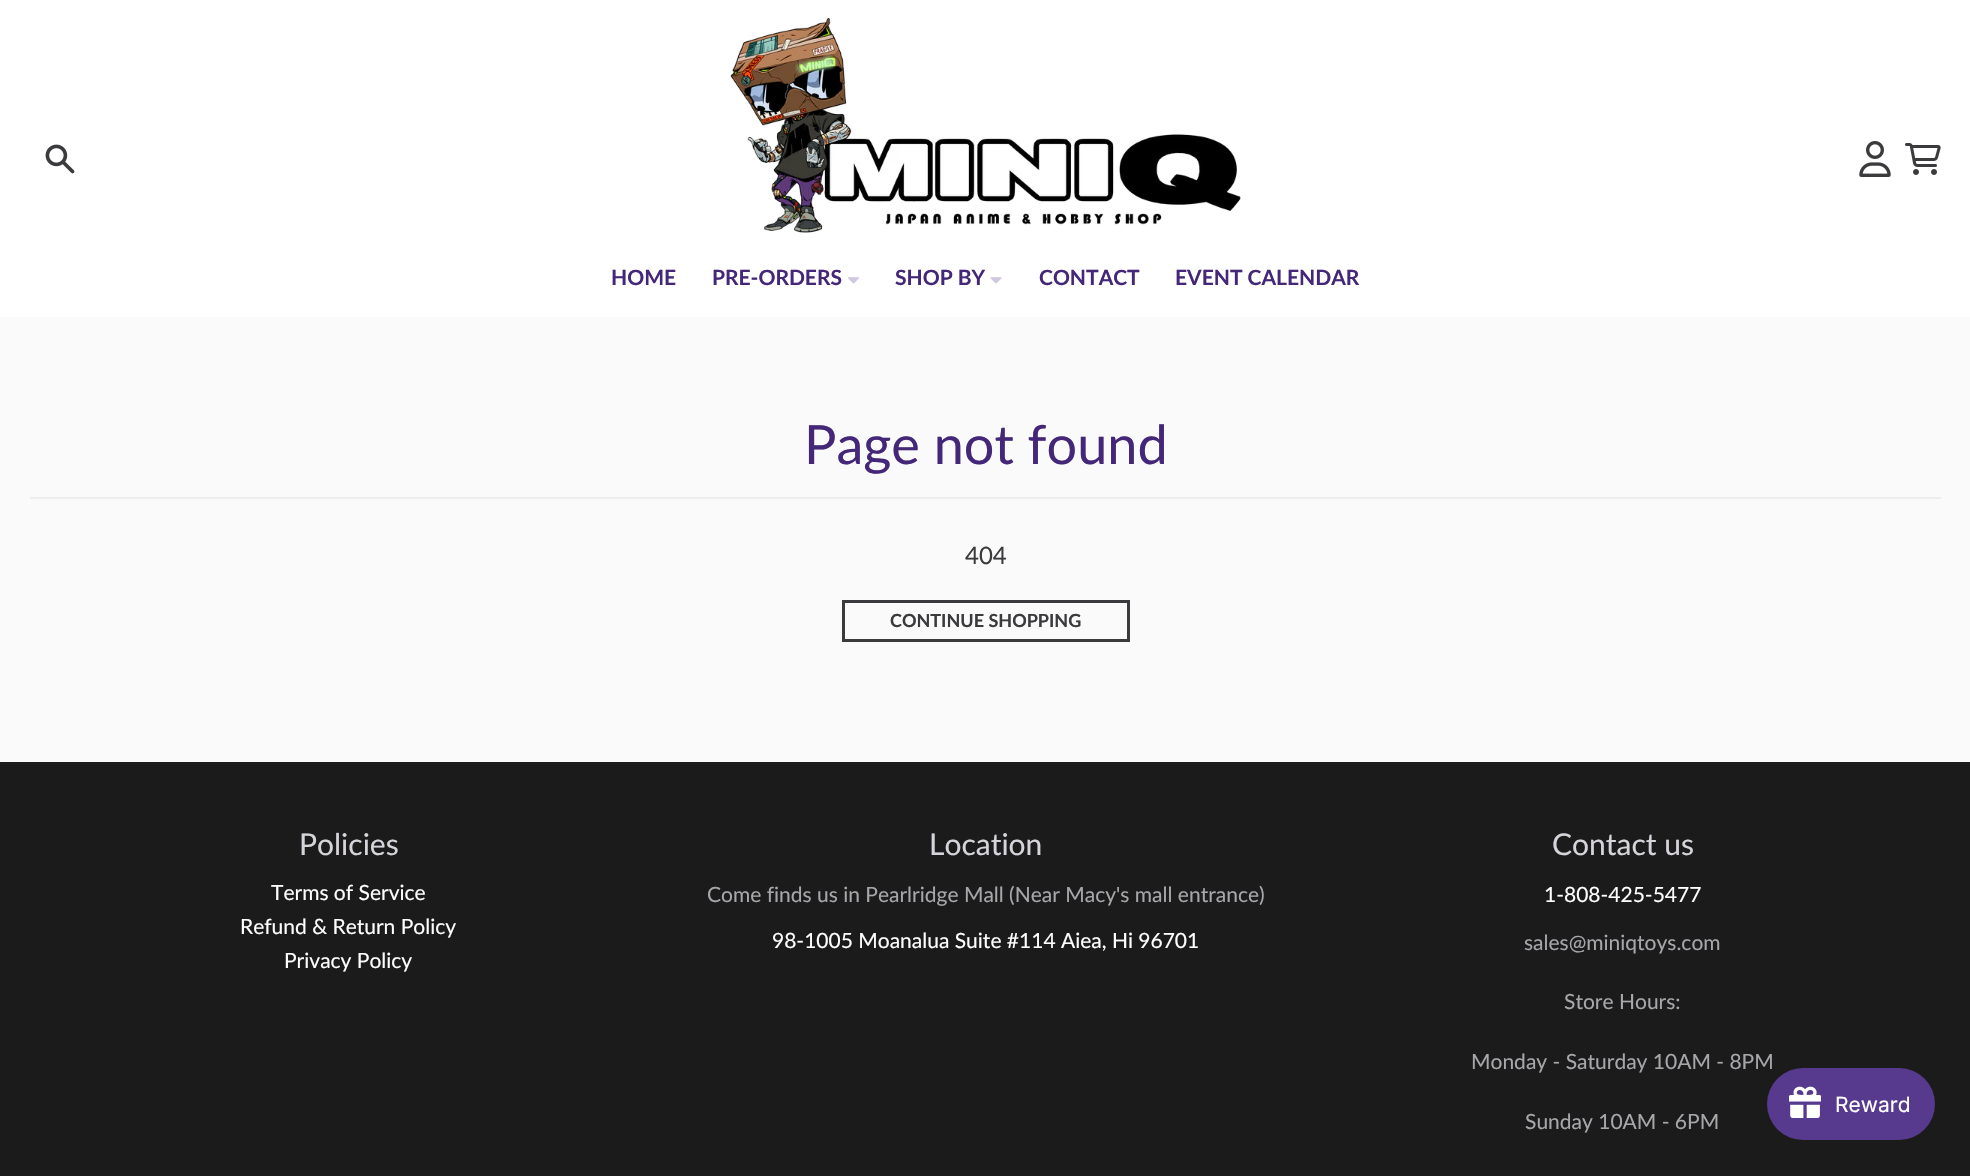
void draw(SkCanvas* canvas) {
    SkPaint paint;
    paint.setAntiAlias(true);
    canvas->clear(0xFF1B1B1B);
    paint.setColor(0xFFFFFFFF);
    canvas->drawRect(SkRect::MakeXYWH(0, 0, 1970, 317), paint);
    canvas->drawImageRect(SkImages::DeferredFromEncodedData(SkData::MakeFromFileName("img1.png")), SkRect::MakeXYWH(45, 144, 30, 30), SkSamplingOptions());
    canvas->drawImageRect(SkImages::DeferredFromEncodedData(SkData::MakeFromFileName("img2.png")), SkRect::MakeXYWH(1859, 141, 32, 36), SkSamplingOptions());
    canvas->drawImageRect(SkImages::DeferredFromEncodedData(SkData::MakeFromFileName("img3.png")), SkRect::MakeXYWH(1905, 143, 36, 32), SkSamplingOptions());
    canvas->drawImageRect(SkImages::DeferredFromEncodedData(SkData::MakeFromFileName("img4.png")), SkRect::MakeXYWH(730, 18, 511, 215), SkSamplingOptions());
    SkFont font1(fontMgr->matchFamilyStyle("Lato", SkFontStyle::Bold()), 21);
    font1.setSubpixel(true);
    paint.setColor(0xFF442778);
    canvas->drawString("HOME", 611, 285, font1, paint);
    canvas->drawString("PRE-ORDERS", 712, 285, font1, paint);
    canvas->drawImageRect(SkImages::DeferredFromEncodedData(SkData::MakeFromFileName("img5.png")), SkRect::MakeXYWH(848, 277, 11, 7), SkSamplingOptions());
    canvas->drawString("SHOP BY", 895, 285, font1, paint);
    canvas->drawImageRect(SkImages::DeferredFromEncodedData(SkData::MakeFromFileName("img6.png")), SkRect::MakeXYWH(990, 277, 12, 7), SkSamplingOptions());
    canvas->drawString("CONTACT", 1039, 285, font1, paint);
    canvas->drawString("EVENT CALENDAR", 1175, 285, font1, paint);
    paint.setColor(0xFFFAFAFA);
    canvas->drawRect(SkRect::MakeXYWH(0, 317, 1970, 445), paint);
    paint.setColor(0xFFEDEDED);
    canvas->drawRect(SkRect::MakeXYWH(30, 497, 1911, 2), paint);
    SkFont font2(fontMgr->matchFamilyStyle("Lato", SkFontStyle::Normal()), 54);
    font2.setSubpixel(true);
    paint.setColor(0xFF442778);
    canvas->drawString("Page not found", 804, 464, font2, paint);
    SkFont font3(fontMgr->matchFamilyStyle("Lato", SkFontStyle::Normal()), 24);
    font3.setSubpixel(true);
    paint.setColor(0xFF3B3A3D);
    canvas->drawString("404", 965, 564, font3, paint);
    paint.setStyle(SkPaint::kStroke_Style);
    paint.setStrokeWidth(3);
    canvas->drawRect(SkRect::MakeXYWH(843.5f, 601.5f, 285, 39), paint);
    SkFont font4(fontMgr->matchFamilyStyle("Lato", SkFontStyle::Bold()), 18);
    font4.setSubpixel(true);
    paint.setStyle(SkPaint::kFill_Style);
    canvas->drawString("CONTINUE SHOPPING", 890, 627, font4, paint);
    SkFont font5(fontMgr->matchFamilyStyle("Lato", SkFontStyle::Normal()), 30);
    font5.setSubpixel(true);
    paint.setColor(0xFFD6D4DA);
    canvas->drawString("Policies", 299, 855, font5, paint);
    SkFont font6(fontMgr->matchFamilyStyle("Lato", SkFontStyle::Normal()), 21);
    font6.setSubpixel(true);
    paint.setColor(0xFFFFFFFF);
    canvas->drawString("Terms of Service", 271, 900, font6, paint);
    canvas->drawString("Refund & Return Policy", 240, 934, font6, paint);
    canvas->drawString("Privacy Policy", 284, 968, font6, paint);
    paint.setColor(0xFFD6D4DA);
    canvas->drawString("Location", 929, 855, font5, paint);
    paint.setColor(0xFFA7A6AA);
    canvas->drawString("Come finds us in Pearlridge Mall (Near Macy's mall entrance)", 707, 902, font6, paint);
    paint.setColor(0xFFFFFFFF);
    canvas->drawString("98-1005 Moanalua Suite #114 Aiea, Hi 96701", 772, 948, font6, paint);
    paint.setColor(0xFFD6D4DA);
    canvas->drawString("Contact us", 1552, 855, font5, paint);
    paint.setColor(0xFFFFFFFF);
    canvas->drawString("1-808-425-5477", 1544, 902, font6, paint);
    paint.setColor(0xFFA7A6AA);
    canvas->drawString("sales@miniqtoys.com", 1524, 950, font6, paint);
    canvas->drawString("Store Hours:", 1564, 1009, font6, paint);
    canvas->drawString("Monday - Saturday 10AM - 8PM", 1471, 1069, font6, paint);
    canvas->drawString("Sunday 10AM - 6PM", 1525, 1129, font6, paint);
    paint.setColor(0xFF57398E);
    canvas->drawRoundRect(SkRect::MakeXYWH(1767, 1068, 168, 72), 36, 36, paint);
    canvas->drawImageRect(SkImages::DeferredFromEncodedData(SkData::MakeFromFileName("img7.png")), SkRect::MakeXYWH(1789, 1086, 32, 32), SkSamplingOptions());
    SkFont font7(fontMgr->matchFamilyStyle("Inter", SkFontStyle::Normal()), 21);
    font7.setSubpixel(true);
    paint.setColor(0xFFFFFFFF);
    canvas->drawString("Reward", 1835, 1112, font7, paint);
}
